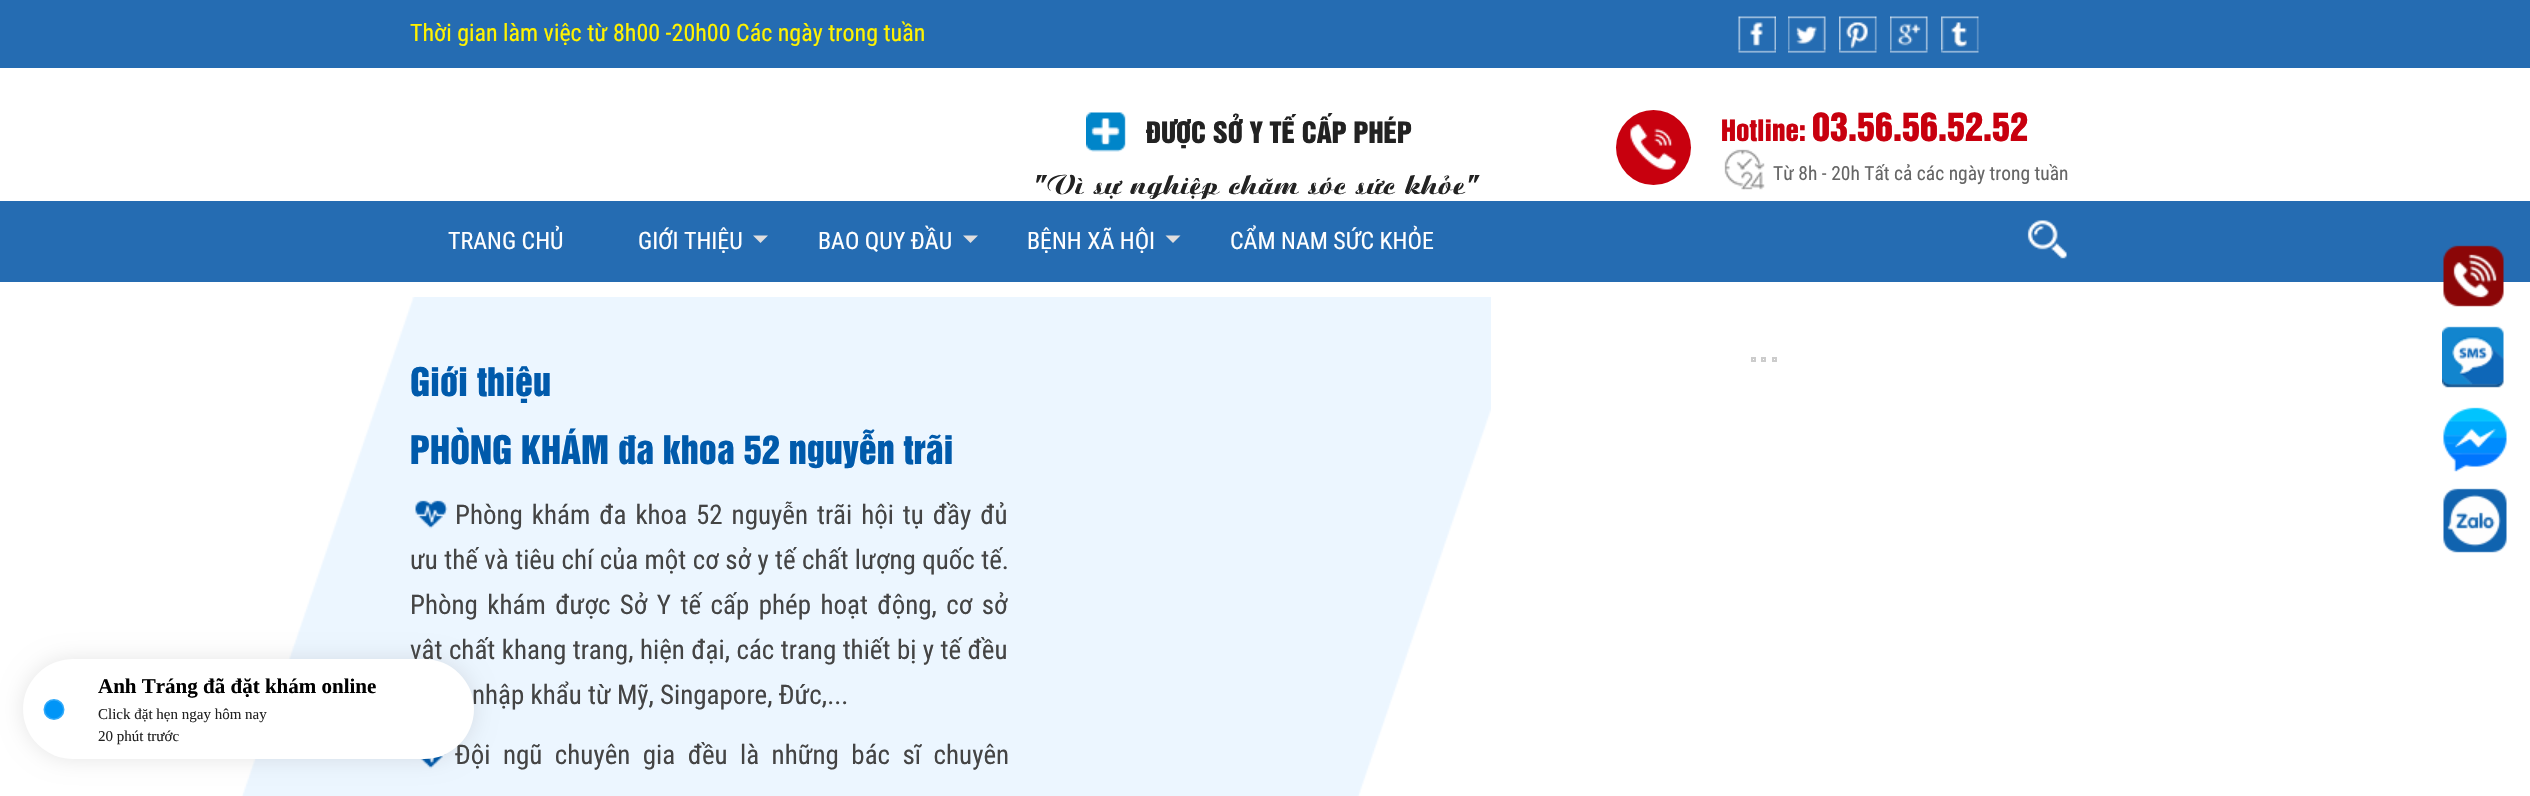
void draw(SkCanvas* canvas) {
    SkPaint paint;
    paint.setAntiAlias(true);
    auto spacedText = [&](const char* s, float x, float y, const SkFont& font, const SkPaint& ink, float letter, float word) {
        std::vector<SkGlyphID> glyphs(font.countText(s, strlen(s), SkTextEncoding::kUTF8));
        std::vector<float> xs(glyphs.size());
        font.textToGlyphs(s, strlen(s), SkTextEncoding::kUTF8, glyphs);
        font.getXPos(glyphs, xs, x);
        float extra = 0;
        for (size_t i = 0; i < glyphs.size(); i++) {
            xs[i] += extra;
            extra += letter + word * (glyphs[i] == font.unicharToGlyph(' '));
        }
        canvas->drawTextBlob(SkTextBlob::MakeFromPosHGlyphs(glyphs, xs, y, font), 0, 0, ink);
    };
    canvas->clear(0xFFFFFFFF);
    paint.setColor(0xFF256CB2);
    canvas->drawRect(SkRect::MakeXYWH(0, 0, 2530, 68), paint);
    SkFont font1(fontMgr->matchFamilyStyle("Roboto Condensed", SkFontStyle::Normal()), 24);
    font1.setSubpixel(true);
    paint.setColor(0xFFFFF200);
    canvas->drawString("Thời gian làm việc từ 8h00 -20h00 Các ngày trong tuần", 410, 41, font1, paint);
    canvas->drawImageRect(SkImages::DeferredFromEncodedData(SkData::MakeFromFileName("img1.png")), SkRect::MakeXYWH(1738, 16, 38, 37), SkSamplingOptions());
    canvas->drawImageRect(SkImages::DeferredFromEncodedData(SkData::MakeFromFileName("img2.png")), SkRect::MakeXYWH(1788, 16, 38, 37), SkSamplingOptions());
    canvas->drawImageRect(SkImages::DeferredFromEncodedData(SkData::MakeFromFileName("img3.png")), SkRect::MakeXYWH(1839, 16, 38, 37), SkSamplingOptions());
    canvas->drawImageRect(SkImages::DeferredFromEncodedData(SkData::MakeFromFileName("img4.png")), SkRect::MakeXYWH(1890, 16, 38, 37), SkSamplingOptions());
    canvas->drawImageRect(SkImages::DeferredFromEncodedData(SkData::MakeFromFileName("img5.png")), SkRect::MakeXYWH(1941, 16, 38, 37), SkSamplingOptions());
    canvas->drawImageRect(SkImages::DeferredFromEncodedData(SkData::MakeFromFileName("img6.png")), SkRect::MakeXYWH(1086, 112, 40, 40), SkSamplingOptions());
    SkFont font2(fontMgr->matchFamilyStyle("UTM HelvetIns", SkFontStyle::Normal()), 27);
    font2.setSubpixel(true);
    paint.setColor(0xFF222222);
    canvas->drawString("ĐƯỢC SỞ Y TẾ CẤP PHÉP", 1146, 143, font2, paint);
    SkFont font3(fontMgr->matchFamilyStyle("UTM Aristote", SkFontStyle::Normal()), 24);
    font3.setSubpixel(true);
    canvas->drawString("\"Vì sự nghiệp chăm sóc sức khỏe\"", 1033, 194, font3, paint);
    paint.setColor(0xFFC8000E);
    canvas->drawCircle(1653.5f, 147.5f, 37.5f, paint);
    canvas->drawImageRect(SkImages::DeferredFromEncodedData(SkData::MakeFromFileName("img7.png")), SkRect::MakeXYWH(1630, 124, 46, 46), SkSamplingOptions());
    canvas->drawString("Hotline:", 1721, 141, font2, paint);
    SkFont font4(fontMgr->matchFamilyStyle("UTM HelvetIns", SkFontStyle::Normal()), 36);
    font4.setSubpixel(true);
    canvas->drawString("03.56.56.52.52", 1812, 141, font4, paint);
    canvas->drawImageRect(SkImages::DeferredFromEncodedData(SkData::MakeFromFileName("img8.png")), SkRect::MakeXYWH(1724, 149, 41, 41), SkSamplingOptions());
    SkFont font5(fontMgr->matchFamilyStyle("Roboto Condensed", SkFontStyle::Normal()), 19.5f);
    font5.setSubpixel(true);
    paint.setColor(0xFF666666);
    canvas->drawString("Từ 8h - 20h Tất cả các ngày trong tuần", 1773, 180, font5, paint);
    paint.setColor(0xFF256CB2);
    canvas->drawRect(SkRect::MakeXYWH(0, 201, 2530, 81), paint);
    paint.setColor(0xFFFFFFFF);
    canvas->drawString("TRANG CHỦ", 448, 249, font1, paint);
    canvas->drawString("GIỚI THIỆU", 638, 249, font1, paint);
    paint.setColor(0xFFE0DEDE);
    canvas->drawPath(SkPathBuilder().moveTo(753, 235.5f).lineTo(768, 235.5f).lineTo(760.5f, 243).close().detach(), paint);
    paint.setColor(0xFFFFFFFF);
    canvas->drawString("BAO QUY ĐẦU", 818, 249, font1, paint);
    paint.setColor(0xFFE0DEDE);
    canvas->drawPath(SkPathBuilder().moveTo(963, 235.5f).lineTo(978, 235.5f).lineTo(970.5f, 243).close().detach(), paint);
    paint.setColor(0xFFFFFFFF);
    canvas->drawString("BỆNH XÃ HỘI", 1027, 249, font1, paint);
    paint.setColor(0xFFE0DEDE);
    canvas->drawPath(SkPathBuilder().moveTo(1165.5f, 235.5f).lineTo(1180.5f, 235.5f).lineTo(1173, 243).close().detach(), paint);
    paint.setColor(0xFFFFFFFF);
    canvas->drawString("CẨM NAM SỨC KHỎE", 1230, 249, font1, paint);
    canvas->drawImageRect(SkImages::DeferredFromEncodedData(SkData::MakeFromFileName("img9.png")), SkRect::MakeXYWH(2027, 220, 40, 39), SkSamplingOptions());
    canvas->drawImageRect(SkImages::DeferredFromEncodedData(SkData::MakeFromFileName("img10.png")), SkRect::MakeXYWH(242, 297, 1249, 499), SkSamplingOptions());
    canvas->drawImageRect(SkImages::DeferredFromEncodedData(SkData::MakeFromFileName("img12.png")), SkRect::MakeXYWH(420, 753, 26, 16), SkSamplingOptions());
    paint.setColor(0x1A000000);
    paint.setMaskFilter(SkMaskFilter::MakeBlur(kNormal_SkBlurStyle, 11));
    canvas->drawRoundRect(SkRect::MakeXYWH(23, 659, 451, 100), 50, 50, paint);
    paint.setMaskFilter(nullptr);
    SkFont font6(fontMgr->matchFamilyStyle("Roboto Condensed", SkFontStyle::Normal()), 27);
    font6.setSubpixel(true);
    paint.setColor(0xFF444444);
    spacedText("vật chất khang trang, hiện đại, các trang thiết bị y tế đều", 410, 659, font6, paint, 0, 0.25f);
    canvas->drawString("nhập khẩu từ Mỹ, Singapore, Đức,...", 472, 704, font6, paint);
    spacedText("Đội ngũ chuyên gia đều là những bác sĩ chuyên", 455, 764, font6, paint, 0, 6.25f);
    paint.setColor(0xFFFFFFFF);
    canvas->drawRoundRect(SkRect::MakeXYWH(23, 659, 451, 100), 50, 50, paint);
    paint.setColor(0xFF0095F7);
    canvas->drawCircle(54, 709.5f, 9, paint);
    paint.setStyle(SkPaint::kStroke_Style);
    paint.setStrokeWidth(3);
    paint.setColor(0xCC0095F7);
    canvas->drawCircle(54, 709.5f, 9, paint);
    SkFont font7(fontMgr->matchFamilyStyle("Liberation Serif", SkFontStyle::Bold()), 21);
    font7.setSubpixel(true);
    paint.setStyle(SkPaint::kFill_Style);
    paint.setColor(0xFF000000);
    canvas->drawString("Anh Tráng đã đặt khám online", 98, 693, font7, paint);
    SkFont font8(fontMgr->matchFamilyStyle("Liberation Serif", SkFontStyle::Normal()), 15);
    font8.setSubpixel(true);
    paint.setColor(0xFF222222);
    canvas->drawString("Click đặt hẹn ngay hôm nay", 98, 719, font8, paint);
    canvas->drawString("20 phút trước", 98, 741, font8, paint);
    paint.setStyle(SkPaint::kStroke_Style);
    paint.setStrokeWidth(2);
    paint.setColor(0xFFCCCCCC);
    canvas->drawRect(SkRect::MakeXYWH(1752, 358, 3, 3), paint);
    canvas->drawRect(SkRect::MakeXYWH(1762, 358, 3, 3), paint);
    canvas->drawRect(SkRect::MakeXYWH(1773, 358, 3, 3), paint);
    paint.setStyle(SkPaint::kFill_Style);
    paint.setColor(0xFF005AAB);
    canvas->drawString("Giới thiệu", 410, 396, font4, paint);
    canvas->drawString("PHÒNG KHÁM đa khoa 52 nguyễn trãi", 410, 464, font4, paint);
    canvas->drawImageRect(SkImages::DeferredFromEncodedData(SkData::MakeFromFileName("img11.png")), SkRect::MakeXYWH(415, 500, 33, 29), SkSamplingOptions());
    paint.setColor(0xFF444444);
    spacedText("Phòng khám đa khoa 52 nguyễn trãi hội tụ đầy đủ", 455, 524, font6, paint, 0, 2.75f);
    spacedText("ưu thế và tiêu chí của một cơ sở y tế chất lượng quốc tế.", 410, 569, font6, paint, 0, 0.2f);
    spacedText("Phòng khám được Sở Y tế cấp phép hoạt động, cơ sở", 410, 614, font6, paint, 0, 3.25f);
    canvas->drawImageRect(SkImages::DeferredFromEncodedData(SkData::MakeFromFileName("img13.png")), SkRect::MakeXYWH(2443, 245, 61, 62), SkSamplingOptions());
    canvas->drawImageRect(SkImages::DeferredFromEncodedData(SkData::MakeFromFileName("img14.png")), SkRect::MakeXYWH(2442, 326, 62, 62), SkSamplingOptions());
    canvas->drawImageRect(SkImages::DeferredFromEncodedData(SkData::MakeFromFileName("img15.png")), SkRect::MakeXYWH(2443, 407, 64, 65), SkSamplingOptions());
    canvas->drawImageRect(SkImages::DeferredFromEncodedData(SkData::MakeFromFileName("img16.png")), SkRect::MakeXYWH(2443, 488, 64, 65), SkSamplingOptions());
}
